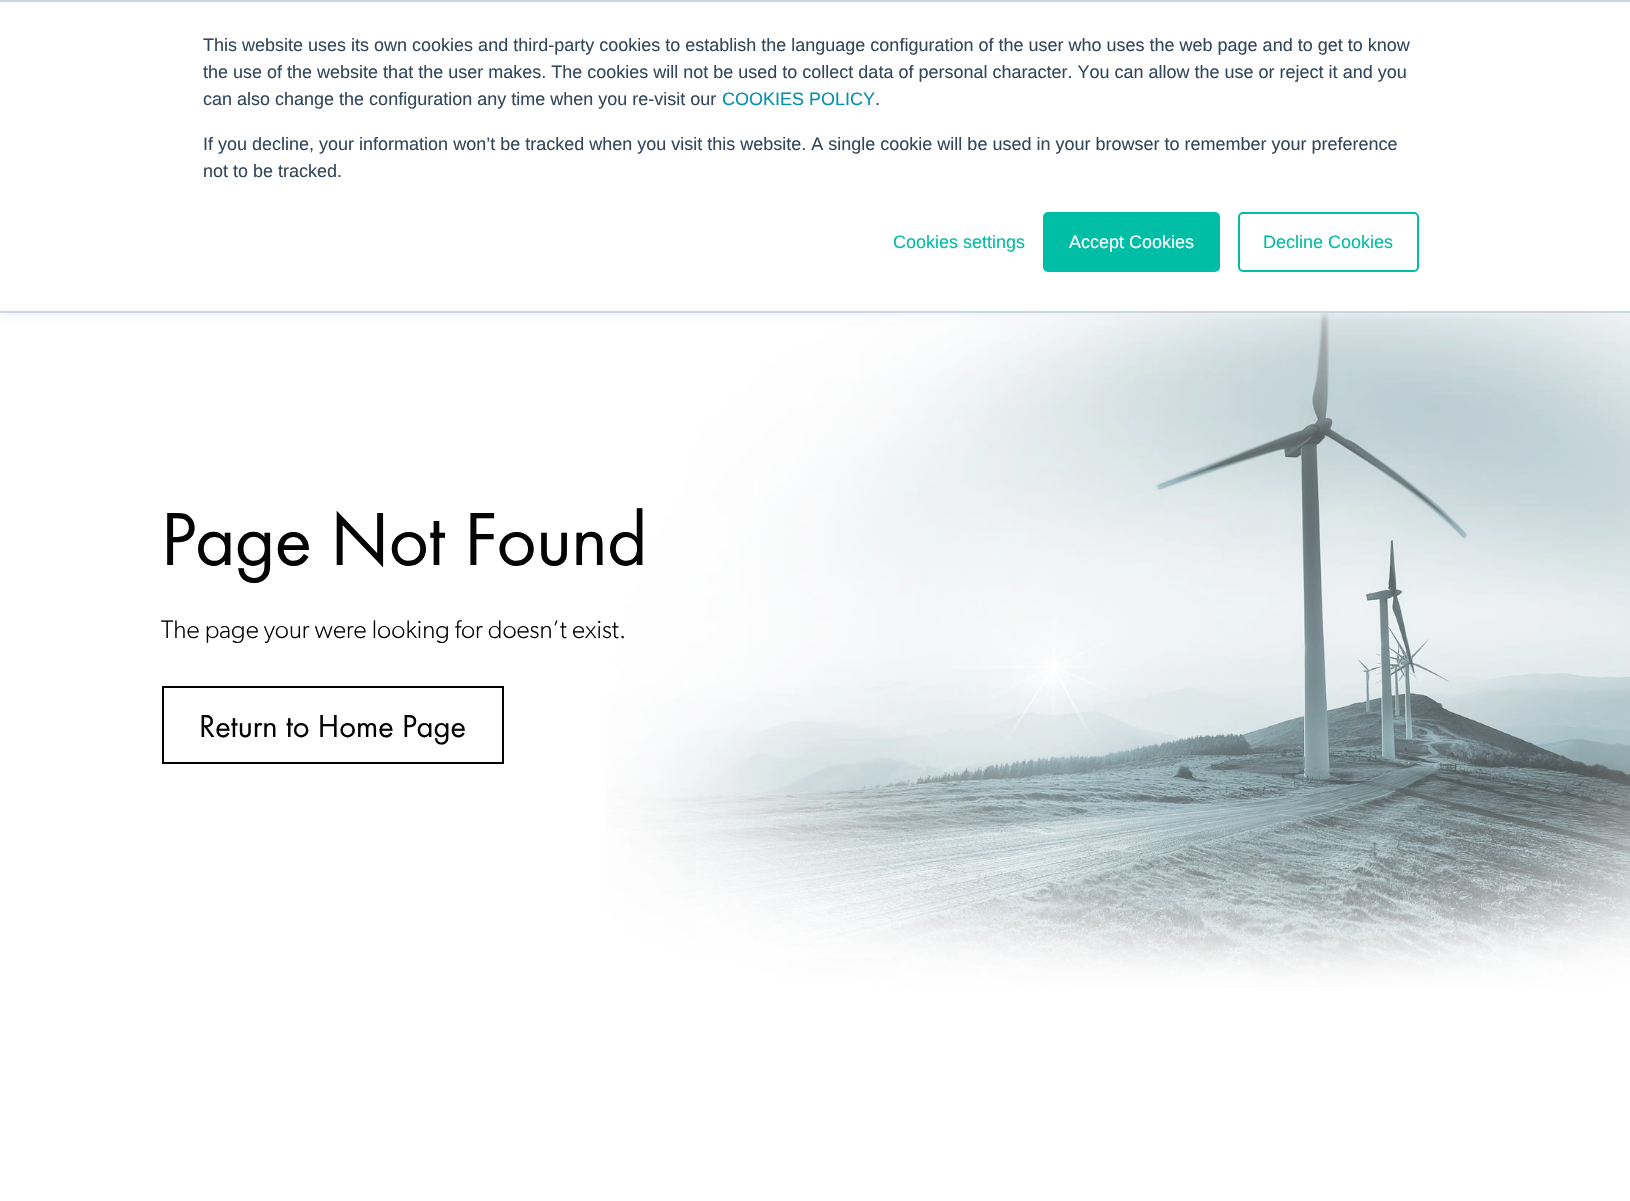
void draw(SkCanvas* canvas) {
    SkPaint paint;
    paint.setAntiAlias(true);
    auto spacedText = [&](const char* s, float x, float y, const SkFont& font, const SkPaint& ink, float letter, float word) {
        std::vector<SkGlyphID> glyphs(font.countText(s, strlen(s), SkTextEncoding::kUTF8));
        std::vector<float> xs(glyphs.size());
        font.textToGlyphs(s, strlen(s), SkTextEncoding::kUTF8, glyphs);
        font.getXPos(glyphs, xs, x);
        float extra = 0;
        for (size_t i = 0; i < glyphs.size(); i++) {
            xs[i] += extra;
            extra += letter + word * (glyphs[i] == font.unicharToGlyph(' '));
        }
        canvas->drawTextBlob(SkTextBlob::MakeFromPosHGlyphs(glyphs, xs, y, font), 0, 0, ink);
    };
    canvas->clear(0xFFFFFFFF);
    canvas->drawImageRect(SkImages::DeferredFromEncodedData(SkData::MakeFromFileName("img1.png")), SkRect::MakeXYWH(606, 313, 1024, 674), SkSamplingOptions());
    paint.setColor(0xFFEAF0F6);
    paint.setMaskFilter(SkMaskFilter::MakeBlur(kNormal_SkBlurStyle, 4));
    canvas->drawRect(SkRect::MakeXYWH(0, 2, 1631, 312), paint);
    paint.setMaskFilter(nullptr);
    paint.setColor(0xFFFFFFFF);
    canvas->drawRect(SkRect::MakeXYWH(0, 2, 1630, 309), paint);
    paint.setColor(0xFFCBD6E2);
    canvas->drawRect(SkRect::MakeXYWH(0, 0, 1630, 2), paint);
    canvas->drawRect(SkRect::MakeXYWH(0, 311, 1630, 2), paint);
    SkFont font1(fontMgr->matchFamilyStyle("Liberation Sans", SkFontStyle::Normal()), 18);
    font1.setSubpixel(true);
    paint.setColor(0xFF33475B);
    canvas->drawString("This website uses its own cookies and third-party cookies to establish the language configuration of the user who uses the web page and to get to know", 203, 51, font1, paint);
    canvas->drawString("the use of the website that the user makes. The cookies will not be used to collect data of personal character. You can allow the use or reject it and you", 203, 78, font1, paint);
    canvas->drawString("can also change the configuration any time when you re-visit our", 203, 105, font1, paint);
    paint.setColor(0xFF0091AE);
    canvas->drawString("COOKIES POLICY", 722, 105, font1, paint);
    paint.setColor(0xFF33475B);
    canvas->drawString(".", 875, 105, font1, paint);
    canvas->drawString("If you decline, your information won’t be tracked when you visit this website. A single cookie will be used in your browser to remember your preference", 203, 150, font1, paint);
    canvas->drawString("not to be tracked.", 203, 177, font1, paint);
    paint.setColor(0xFF00BDA5);
    canvas->drawString("Cookies settings", 893, 248, font1, paint);
    canvas->drawRoundRect(SkRect::MakeXYWH(1044, 213, 175, 58), 4, 4, paint);
    paint.setStyle(SkPaint::kStroke_Style);
    paint.setStrokeWidth(2);
    canvas->drawRoundRect(SkRect::MakeXYWH(1044, 213, 175, 58), 4, 4, paint);
    paint.setStyle(SkPaint::kFill_Style);
    paint.setColor(0xFFFFFFFF);
    canvas->drawString("Accept Cookies", 1069, 248, font1, paint);
    paint.setStyle(SkPaint::kStroke_Style);
    paint.setColor(0xFF00BDA5);
    canvas->drawRoundRect(SkRect::MakeXYWH(1239, 213, 179, 58), 4, 4, paint);
    paint.setStyle(SkPaint::kFill_Style);
    canvas->drawString("Decline Cookies", 1263, 248, font1, paint);
    {
        const SkColor colors[] = {0x00FFFFFF, 0xFFFFFFFF};
        const float stops[] = {0.65f, 1};
        const SkPoint ends[] = {{448, 0}, {449, 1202}};
        paint.setShader(SkGradientShader::MakeLinear(ends, colors, stops, 2, SkTileMode::kClamp));
        paint.setAlpha(255);
    }
    canvas->drawRect(SkRect::MakeXYWH(696, 792, 201, 166), paint);
    SkFont font2(fontMgr->matchFamilyStyle("Futura", SkFontStyle::Normal()), 78);
    font2.setSubpixel(true);
    paint.setShader(nullptr);
    paint.setColor(0xFF040404);
    spacedText("Page Not Found", 161, 565, font2, paint, -0.25f, 0);
    SkFont font3(fontMgr->matchFamilyStyle("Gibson", SkFontStyle(300, SkFontStyle::kNormal_Width, SkFontStyle::kUpright_Slant)), 25.5f);
    font3.setSubpixel(true);
    canvas->drawString("The page your were looking for doesn’t exist.", 161, 638, font3, paint);
    paint.setStyle(SkPaint::kStroke_Style);
    canvas->drawRect(SkRect::MakeXYWH(163, 687, 340, 76), paint);
    SkFont font4(fontMgr->matchFamilyStyle("Futura", SkFontStyle::Normal()), 33);
    font4.setSubpixel(true);
    paint.setStyle(SkPaint::kFill_Style);
    canvas->drawString("Return to Home Page", 199, 737, font4, paint);
    {
        const SkColor colors[] = {0x00FFFFFF, 0xFFFFFFFF};
        const float stops[] = {0.65f, 1};
        const SkPoint ends[] = {{1264, 0}, {1264, 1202}};
        paint.setShader(SkGradientShader::MakeLinear(ends, colors, stops, 2, SkTileMode::kClamp));
        paint.setAlpha(255);
    }
    canvas->drawRect(SkRect::MakeXYWH(897, 790, 733, 195), paint);
}
